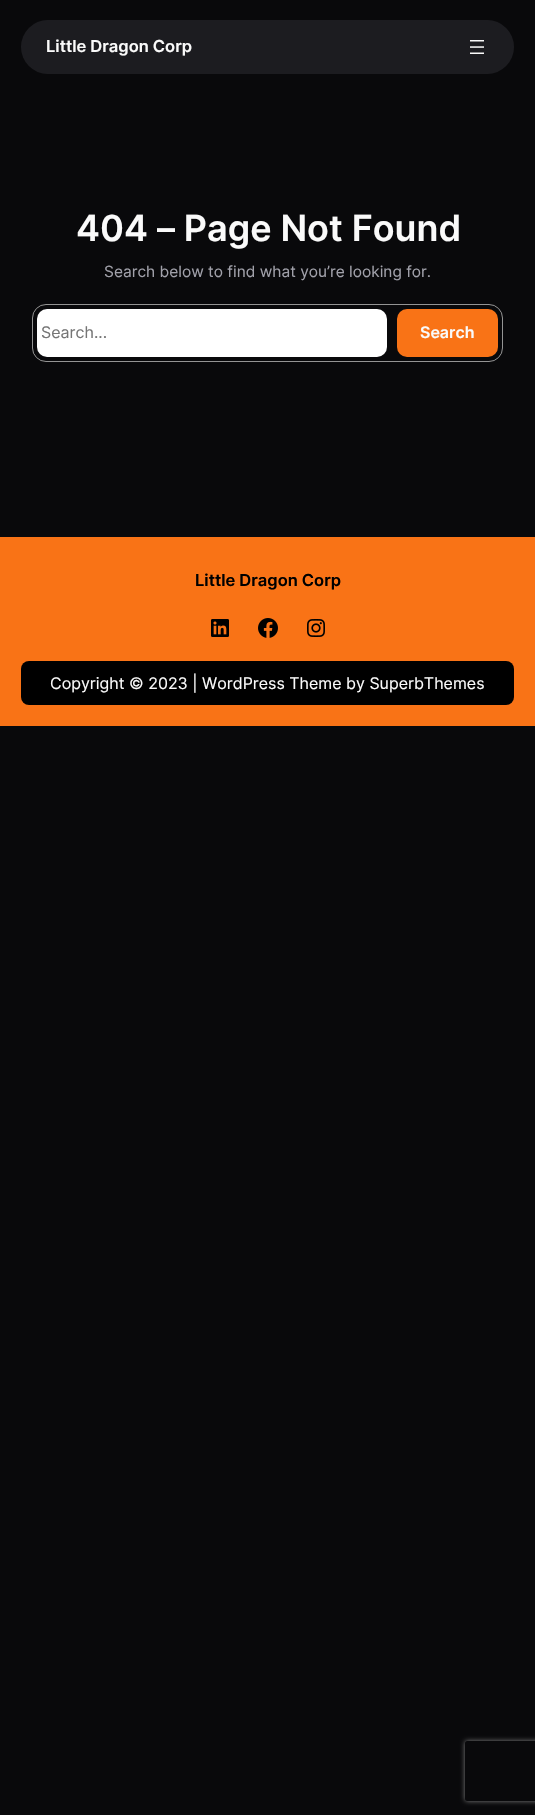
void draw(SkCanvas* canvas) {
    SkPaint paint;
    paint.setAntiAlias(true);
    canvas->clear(0xFF09090B);
    paint.setColor(0xFF1C1C20);
    canvas->drawRoundRect(SkRect::MakeXYWH(21, 20, 493, 54), 27, 27, paint);
    SkFont font1(fontMgr->matchFamilyStyle("Inter", SkFontStyle(600, SkFontStyle::kNormal_Width, SkFontStyle::kUpright_Slant)), 16.5f);
    font1.setSubpixel(true);
    paint.setColor(0xFFFAFAFA);
    canvas->drawString("Little Dragon Corp", 46, 52, font1, paint);
    canvas->drawImageRect(SkImages::DeferredFromEncodedData(SkData::MakeFromFileName("img1.png")), SkRect::MakeXYWH(470, 40, 14, 14), SkSamplingOptions());
    SkFont font2(fontMgr->matchFamilyStyle("Inter", SkFontStyle(600, SkFontStyle::kNormal_Width, SkFontStyle::kUpright_Slant)), 36);
    font2.setSubpixel(true);
    canvas->drawString("404 – Page Not Found", 76, 241, font2, paint);
    SkFont font3(fontMgr->matchFamilyStyle("Inter", SkFontStyle::Normal()), 15.5f);
    font3.setSubpixel(true);
    paint.setColor(0xFFA1A1AA);
    canvas->drawString("Search below to find what you’re looking for.", 104, 277, font3, paint);
    paint.setStyle(SkPaint::kStroke_Style);
    paint.setStrokeWidth(1);
    paint.setColor(0xFF949494);
    canvas->drawRoundRect(SkRect::MakeXYWH(32.5f, 304.5f, 470, 57), 13.5f, 13.5f, paint);
    paint.setStyle(SkPaint::kFill_Style);
    paint.setColor(0xFFFFFFFF);
    canvas->drawRoundRect(SkRect::MakeXYWH(37, 309, 350, 48), 10, 10, paint);
    SkFont font4(fontMgr->matchFamilyStyle("Inter", SkFontStyle::Normal()), 16);
    font4.setSubpixel(true);
    paint.setColor(0xFF757575);
    canvas->drawString("Search...", 41, 338, font4, paint);
    paint.setColor(0xFFF97316);
    canvas->drawRoundRect(SkRect::MakeXYWH(397, 309, 101, 48), 10, 10, paint);
    SkFont font5(fontMgr->matchFamilyStyle("Inter", SkFontStyle(600, SkFontStyle::kNormal_Width, SkFontStyle::kUpright_Slant)), 16);
    font5.setSubpixel(true);
    paint.setColor(0xFFFAFAFA);
    canvas->drawString("Search", 420, 338, font5, paint);
    paint.setColor(0xFFF97316);
    canvas->drawRect(SkRect::MakeXYWH(0, 537, 535, 189), paint);
    paint.setColor(0xFF000000);
    canvas->drawString("Little Dragon Corp", 195, 586, font1, paint);
    canvas->drawImageRect(SkImages::DeferredFromEncodedData(SkData::MakeFromFileName("img2.png")), SkRect::MakeXYWH(211, 619, 18, 18), SkSamplingOptions());
    canvas->drawImageRect(SkImages::DeferredFromEncodedData(SkData::MakeFromFileName("img3.png")), SkRect::MakeXYWH(258, 618, 20, 20), SkSamplingOptions());
    canvas->drawImageRect(SkImages::DeferredFromEncodedData(SkData::MakeFromFileName("img4.png")), SkRect::MakeXYWH(307, 619, 18, 18), SkSamplingOptions());
    canvas->drawRoundRect(SkRect::MakeXYWH(21, 661, 493, 44), 8, 8, paint);
    paint.setColor(0xFFFAFAFA);
    canvas->drawString("Copyright © 2023 | WordPress Theme by SuperbThemes", 50, 689, font4, paint);
    canvas->save();
    canvas->clipPath(SkPathBuilder(SkPathFillType::kEvenOdd).moveTo(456, 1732).lineTo(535, 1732).lineTo(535, 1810).lineTo(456, 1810).close().moveTo(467, 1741).lineTo(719, 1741).cubicTo(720, 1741, 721, 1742, 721, 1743).lineTo(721, 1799).cubicTo(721, 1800, 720, 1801, 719, 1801).lineTo(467, 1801).cubicTo(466, 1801, 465, 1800, 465, 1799).lineTo(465, 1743).cubicTo(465, 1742, 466, 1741, 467, 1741).close().detach(), true);
    paint.setColor(0xFF808080);
    paint.setMaskFilter(SkMaskFilter::MakeBlur(kNormal_SkBlurStyle, 2.5f));
    canvas->drawRoundRect(SkRect::MakeXYWH(465, 1741, 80, 60), 2, 2, paint);
    paint.setMaskFilter(nullptr);
    canvas->restore();
}
